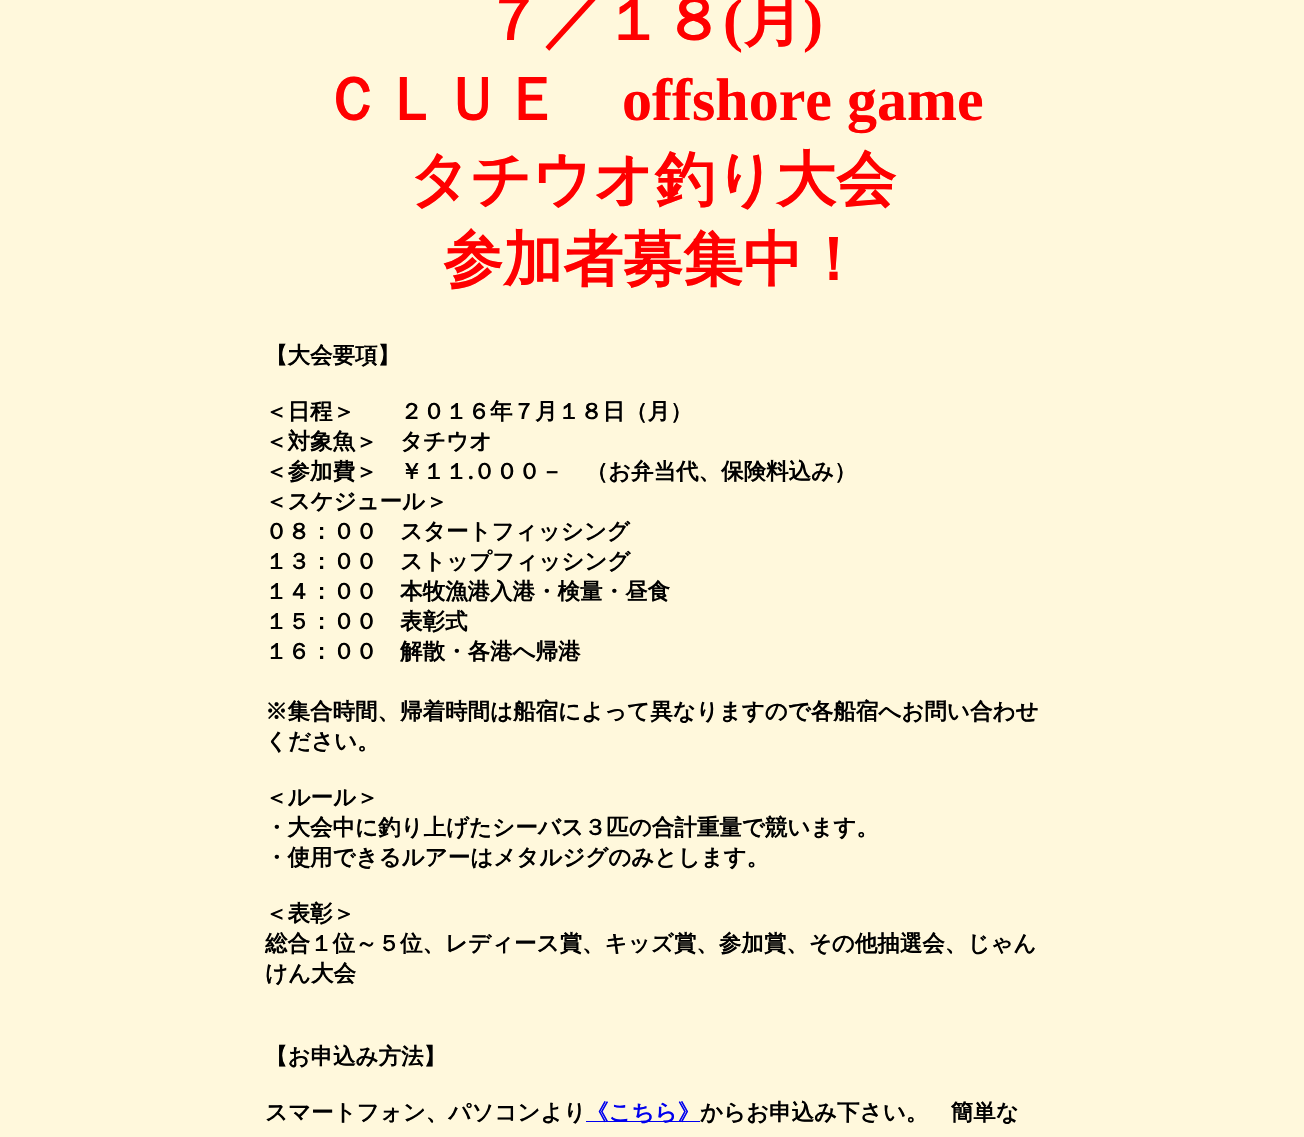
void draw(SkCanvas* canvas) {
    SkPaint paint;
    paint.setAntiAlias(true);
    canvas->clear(0xFFFFF8DC);
    SkFont font1(fontMgr->matchFamilyStyle("WenQuanYi Zen Hei", SkFontStyle::Bold()), 60);
    font1.setSubpixel(true);
    paint.setColor(0xFFFF0000);
    canvas->drawString("７／１８", 483, 40, font1, paint);
    SkFont font2(fontMgr->matchFamilyStyle("Liberation Serif", SkFontStyle::Bold()), 60);
    font2.setSubpixel(true);
    canvas->drawString("(", 723, 40, font2, paint);
    canvas->drawString("月", 743, 40, font1, paint);
    canvas->drawString(")", 803, 40, font2, paint);
    canvas->drawString("ＣＬＵＥ", 322, 120, font1, paint);
    canvas->drawString("offshore game", 622, 120, font2, paint);
    canvas->drawString("タチウオ釣り大会", 409, 200, font1, paint);
    canvas->drawString("参加者募集中！", 443, 280, font1, paint);
    SkFont font3(fontMgr->matchFamilyStyle("WenQuanYi Zen Hei", SkFontStyle::Bold()), 22.5f);
    font3.setSubpixel(true);
    paint.setColor(0xFF000000);
    canvas->drawString("【大会要項】", 265, 363, font3, paint);
    canvas->drawString("＜日程＞　　２０１６年７月１８日（月）", 265, 419, font3, paint);
    canvas->drawString("＜対象魚＞　タチウオ", 265, 449, font3, paint);
    canvas->drawString("＜参加費＞　￥１１", 265, 479, font3, paint);
    SkFont font4(fontMgr->matchFamilyStyle("Liberation Serif", SkFontStyle::Bold()), 22.5f);
    font4.setSubpixel(true);
    canvas->drawString(".", 468, 479, font4, paint);
    canvas->drawString("０００－　（お弁当代、保険料込み）", 473, 479, font3, paint);
    canvas->drawString("＜スケジュール＞", 265, 509, font3, paint);
    canvas->drawString("０８：００　スタートフィッシング", 265, 539, font3, paint);
    canvas->drawString("１３：００　ストップフィッシング", 265, 569, font3, paint);
    canvas->drawString("１４：００　本牧漁港入港・検量・昼食", 265, 599, font3, paint);
    canvas->drawString("１５：００　表彰式", 265, 629, font3, paint);
    canvas->drawString("１６：００　解散・各港へ帰港", 265, 659, font3, paint);
    canvas->drawString("※集合時間、帰着時間は船宿によって異なりますので各船宿へお問い合わせ", 265, 719, font3, paint);
    canvas->drawString("ください。", 265, 749, font3, paint);
    canvas->drawString("＜ルール＞", 265, 805, font3, paint);
    canvas->drawString("・大会中に釣り上げたシーバス３匹の合計重量で競います。", 265, 835, font3, paint);
    canvas->drawString("・使用できるルアーはメタルジグのみとします。", 265, 865, font3, paint);
    canvas->drawString("＜表彰＞", 265, 921, font3, paint);
    canvas->drawString("総合１位～５位、レディース賞、キッズ賞、参加賞、その他抽選会、じゃん", 265, 951, font3, paint);
    canvas->drawString("けん大会", 265, 981, font3, paint);
    canvas->drawString("【お申込み方法】", 265, 1064, font3, paint);
    canvas->drawString("スマートフォン、パソコンより", 265, 1120, font3, paint);
    paint.setColor(0xFF0000EE);
    canvas->drawRect(SkRect::MakeXYWH(586, 1121, 114, 1), paint);
    canvas->drawString("《こちら》", 586, 1120, font3, paint);
    paint.setColor(0xFF000000);
    canvas->drawString("からお申込み下さい。　簡単な", 700, 1120, font3, paint);
}
